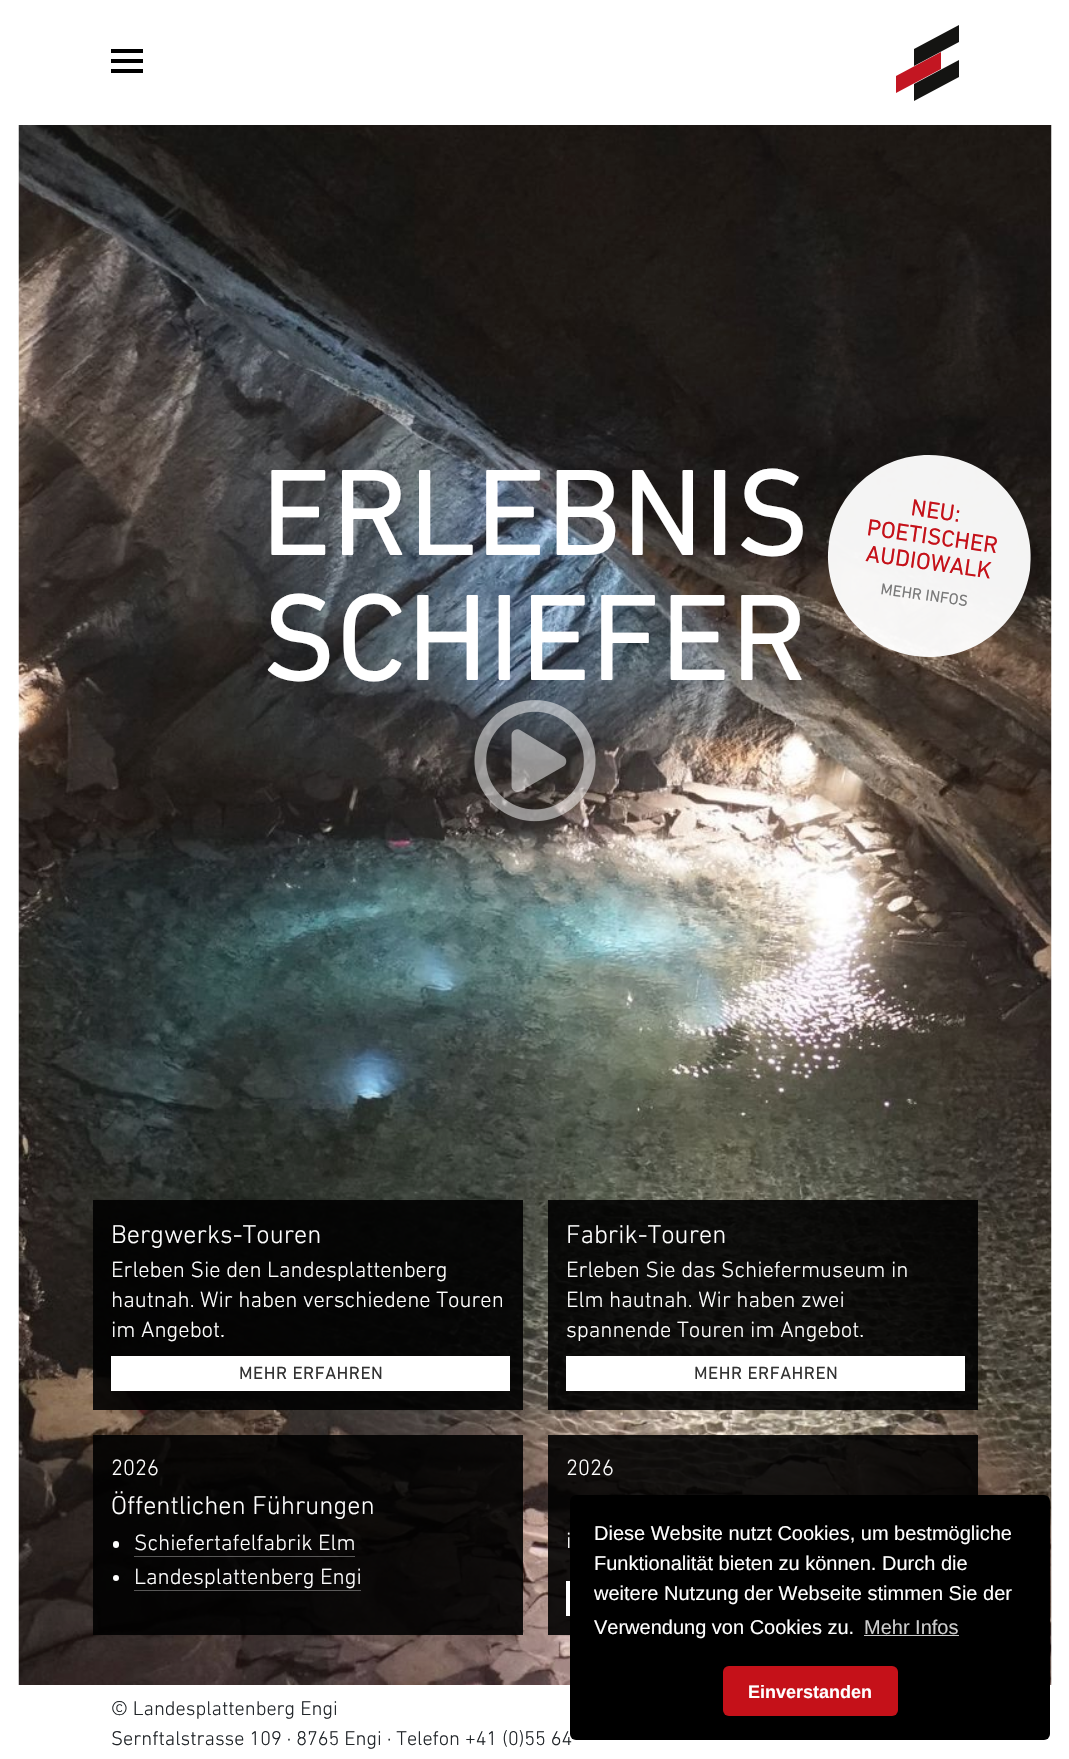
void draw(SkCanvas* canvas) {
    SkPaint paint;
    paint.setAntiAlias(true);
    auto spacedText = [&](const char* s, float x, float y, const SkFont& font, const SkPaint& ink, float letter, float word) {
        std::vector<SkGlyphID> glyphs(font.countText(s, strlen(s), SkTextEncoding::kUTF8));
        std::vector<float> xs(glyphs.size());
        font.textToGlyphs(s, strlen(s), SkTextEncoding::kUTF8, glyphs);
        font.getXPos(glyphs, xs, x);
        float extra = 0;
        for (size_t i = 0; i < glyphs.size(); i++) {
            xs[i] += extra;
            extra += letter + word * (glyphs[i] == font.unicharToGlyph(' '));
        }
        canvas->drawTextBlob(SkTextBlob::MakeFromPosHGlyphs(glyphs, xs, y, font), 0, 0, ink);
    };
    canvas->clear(0xFFFFFFFF);
    canvas->drawImageRect(SkImages::DeferredFromEncodedData(SkData::MakeFromFileName("img1.png")), SkRect::MakeXYWH(18, 125, 1034, 1560), SkSamplingOptions());
    paint.setColor(0xFF000000);
    canvas->drawRect(SkRect::MakeXYWH(111, 59, 32, 4), paint);
    canvas->drawRect(SkRect::MakeXYWH(111, 49, 32, 4), paint);
    canvas->drawRect(SkRect::MakeXYWH(111, 69, 32, 4), paint);
    paint.setColor(0xFFC31622);
    canvas->drawPath(SkPathBuilder().moveTo(941, 69).lineTo(896, 93).lineTo(896, 76).lineTo(941, 52).close().detach(), paint);
    paint.setColor(0xFF141412);
    canvas->drawPath(SkPathBuilder().moveTo(959, 77).lineTo(914, 101).lineTo(914, 84).lineTo(959, 60).close().detach(), paint);
    canvas->drawPath(SkPathBuilder().moveTo(959, 42).lineTo(914, 66).lineTo(914, 49).lineTo(959, 25).close().detach(), paint);
    SkFont font1(fontMgr->matchFamilyStyle("DIN Next", SkFontStyle::Normal()), 125);
    font1.setSubpixel(true);
    paint.setColor(0xFFFFFFFF);
    canvas->drawString("ERLEBNIS", 261, 555, font1, paint);
    canvas->drawString("SCHIEFER", 262, 680, font1, paint);
    canvas->drawImageRect(SkImages::DeferredFromEncodedData(SkData::MakeFromFileName("img2.png")), SkRect::MakeXYWH(474, 700, 122, 122), SkSamplingOptions());
    paint.setColor(0xF2FFFFFF);
    canvas->drawPath(SkPathBuilder().moveTo(943, 456).cubicTo(999, 464, 1037, 515, 1030, 570).cubicTo(1022, 625, 971, 664, 915, 656).cubicTo(860, 648, 821, 597, 829, 542).cubicTo(837, 487, 888, 448, 943, 456).close().detach(), paint);
    SkFont font2(fontMgr->matchFamilyStyle("DIN Next", SkFontStyle::Normal()), 23.75f);
    font2.setSubpixel(true);
    paint.setColor(0xFFC51119);
    canvas->save();
    canvas->rotate(8, 910, 515);
    canvas->drawString("NEU:", 910, 515, font2, paint);
    canvas->restore();
    canvas->save();
    canvas->rotate(8, 866, 535);
    canvas->drawString("POETISCHER", 866, 535, font2, paint);
    canvas->restore();
    canvas->save();
    canvas->rotate(8, 865, 561);
    canvas->drawString("AUDIOWALK", 865, 561, font2, paint);
    canvas->restore();
    SkFont font3(fontMgr->matchFamilyStyle("DIN Next", SkFontStyle::Normal()), 16);
    font3.setSubpixel(true);
    paint.setColor(0xFF7A7A7A);
    canvas->save();
    canvas->rotate(8, 880, 594);
    canvas->drawString("MEHR INFOS", 880, 594, font3, paint);
    canvas->restore();
    paint.setColor(0xE6000000);
    canvas->drawRect(SkRect::MakeXYWH(93, 1200, 430, 210), paint);
    SkFont font4(fontMgr->matchFamilyStyle("DIN Next", SkFontStyle(300, SkFontStyle::kNormal_Width, SkFontStyle::kUpright_Slant)), 26.25f);
    font4.setSubpixel(true);
    paint.setColor(0xFFFFFFFF);
    canvas->drawString("Bergwerks-Touren", 111, 1243, font4, paint);
    SkFont font5(fontMgr->matchFamilyStyle("DIN Next", SkFontStyle(300, SkFontStyle::kNormal_Width, SkFontStyle::kUpright_Slant)), 22.5f);
    font5.setSubpixel(true);
    canvas->drawString("Erleben Sie den Landesplattenberg", 111, 1277, font5, paint);
    canvas->drawString("hautnah. Wir haben verschiedene Touren", 111, 1307, font5, paint);
    canvas->drawString("im Angebot.", 111, 1337, font5, paint);
    canvas->drawRect(SkRect::MakeXYWH(111, 1356, 399, 35), paint);
    SkFont font6(fontMgr->matchFamilyStyle("DIN Next", SkFontStyle::Normal()), 18);
    font6.setSubpixel(true);
    paint.setColor(0xFF333333);
    spacedText("MEHR ERFAHREN", 239, 1379, font6, paint, 0.5f, 0);
    paint.setColor(0xE6000000);
    canvas->drawRect(SkRect::MakeXYWH(548, 1200, 430, 210), paint);
    paint.setColor(0xFFFFFFFF);
    canvas->drawString("Fabrik-Touren", 566, 1243, font4, paint);
    canvas->drawString("Erleben Sie das Schiefermuseum in", 566, 1277, font5, paint);
    canvas->drawString("Elm hautnah. Wir haben zwei", 566, 1307, font5, paint);
    canvas->drawString("spannende Touren im Angebot.", 566, 1337, font5, paint);
    canvas->drawRect(SkRect::MakeXYWH(566, 1356, 399, 35), paint);
    paint.setColor(0xFF333333);
    spacedText("MEHR ERFAHREN", 694, 1379, font6, paint, 0.5f, 0);
    paint.setColor(0xE6000000);
    canvas->drawRect(SkRect::MakeXYWH(93, 1435, 430, 200), paint);
    paint.setColor(0xFFFFFFFF);
    canvas->drawString("2026", 111, 1475, font5, paint);
    canvas->drawString("Öffentlichen Führungen", 111, 1514, font4, paint);
    canvas->drawRoundRect(SkRect::MakeXYWH(113, 1541, 6, 7), 3, 3, paint);
    canvas->drawString("Schiefertafelfabrik Elm", 134, 1550, font5, paint);
    paint.setColor(0x54FFFFFF);
    canvas->drawRect(SkRect::MakeXYWH(134, 1556, 221, 1), paint);
    paint.setColor(0xFFFFFFFF);
    canvas->drawCircle(116, 1578, 3, paint);
    canvas->drawString("Landesplattenberg Engi", 134, 1584, font5, paint);
    paint.setColor(0x54FFFFFF);
    canvas->drawRect(SkRect::MakeXYWH(134, 1590, 227, 1), paint);
    paint.setColor(0xE6000000);
    canvas->drawRect(SkRect::MakeXYWH(548, 1435, 430, 200), paint);
    paint.setColor(0xFFFFFFFF);
    canvas->drawString("2026", 566, 1475, font5, paint);
    canvas->drawString("i", 566, 1548, font5, paint);
    canvas->drawRect(SkRect::MakeXYWH(566, 1581, 4, 35), paint);
    SkFont font7(fontMgr->matchFamilyStyle("DIN Next", SkFontStyle(300, SkFontStyle::kNormal_Width, SkFontStyle::kUpright_Slant)), 20.25f);
    font7.setSubpixel(true);
    paint.setColor(0xFF212529);
    canvas->drawString("© Landesplattenberg Engi", 111, 1715, font7, paint);
    canvas->drawString("Sernftalstrasse 109 · 8765 Engi · Telefon +41 (0)55 64", 111, 1745, font7, paint);
    paint.setColor(0xFF000000);
    canvas->drawRoundRect(SkRect::MakeXYWH(570, 1495, 480, 245), 6, 6, paint);
    SkFont font8(fontMgr->matchFamilyStyle("Liberation Sans", SkFontStyle::Normal()), 20);
    font8.setSubpixel(true);
    paint.setColor(0xFFFFFFFF);
    canvas->drawString("Diese Website nutzt Cookies, um bestmögliche", 594, 1540, font8, paint);
    canvas->drawString("Funktionalität bieten zu können. Durch die", 594, 1570, font8, paint);
    canvas->drawString("weitere Nutzung der Webseite stimmen Sie der", 594, 1600, font8, paint);
    canvas->drawString("Verwendung von Cookies zu.", 594, 1634, font8, paint);
    paint.setColor(0xFFCCCCCC);
    canvas->drawString("Mehr Infos", 864, 1634, font8, paint);
    canvas->drawRect(SkRect::MakeXYWH(864, 1635, 95, 1), paint);
    paint.setColor(0xFFC51119);
    canvas->drawRoundRect(SkRect::MakeXYWH(723, 1666, 175, 50), 6, 6, paint);
    SkFont font9(fontMgr->matchFamilyStyle("Liberation Sans", SkFontStyle::Bold()), 18);
    font9.setSubpixel(true);
    paint.setColor(0xFFFFFFFF);
    canvas->drawString("Einverstanden", 748, 1698, font9, paint);
}
